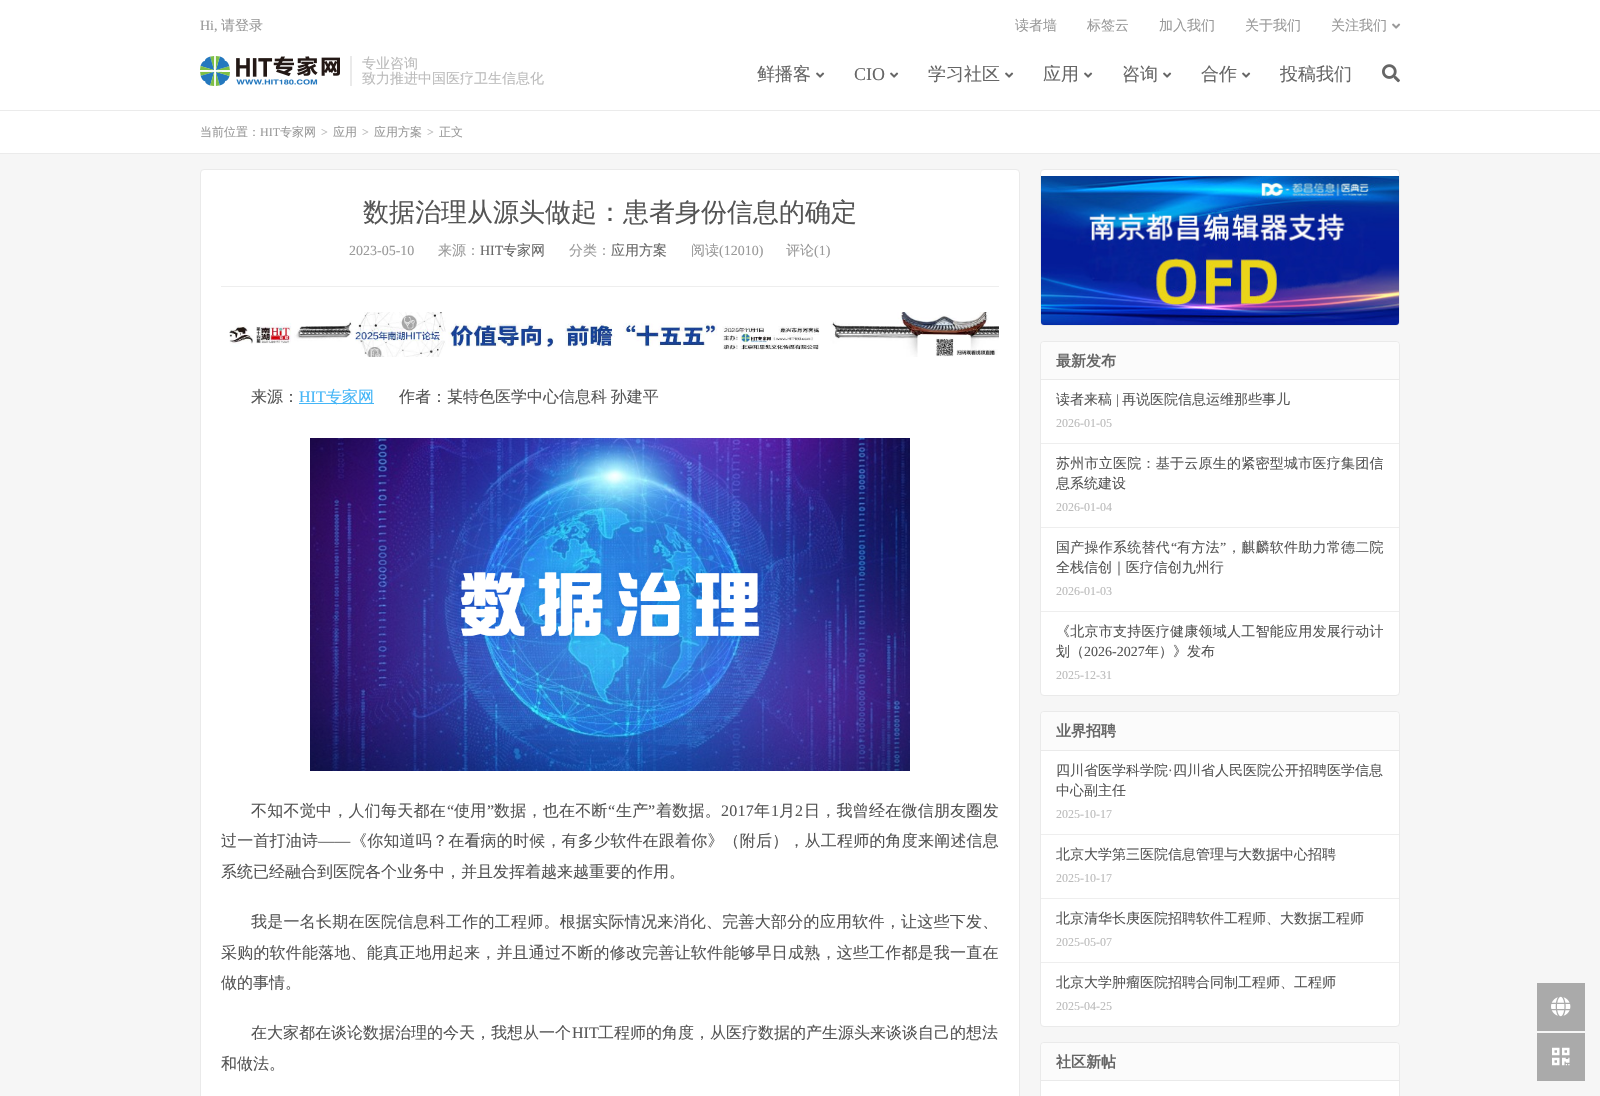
void draw(SkCanvas* canvas) {
    SkPaint paint;
    paint.setAntiAlias(true);
    auto spacedText = [&](const char* s, float x, float y, const SkFont& font, const SkPaint& ink, float letter, float word) {
        std::vector<SkGlyphID> glyphs(font.countText(s, strlen(s), SkTextEncoding::kUTF8));
        std::vector<float> xs(glyphs.size());
        font.textToGlyphs(s, strlen(s), SkTextEncoding::kUTF8, glyphs);
        font.getXPos(glyphs, xs, x);
        float extra = 0;
        for (size_t i = 0; i < glyphs.size(); i++) {
            xs[i] += extra;
            extra += letter + word * (glyphs[i] == font.unicharToGlyph(' '));
        }
        canvas->drawTextBlob(SkTextBlob::MakeFromPosHGlyphs(glyphs, xs, y, font), 0, 0, ink);
    };
    canvas->clear(0xFFF6F6F6);
    paint.setColor(0xFFFFFFFF);
    canvas->drawRect(SkRect::MakeXYWH(0, 0, 1600, 110), paint);
    paint.setColor(0xFFEBEBEB);
    canvas->drawRect(SkRect::MakeXYWH(0, 110, 1600, 1), paint);
    SkFont font1(fontMgr->matchFamilyStyle("Liberation Serif", SkFontStyle::Normal()), 14);
    font1.setSubpixel(true);
    paint.setColor(0xFF999999);
    canvas->drawString("Hi,", 200, 30, font1, paint);
    SkFont font2(fontMgr->matchFamilyStyle("WenQuanYi Zen Hei", SkFontStyle(500, SkFontStyle::kNormal_Width, SkFontStyle::kUpright_Slant)), 14);
    font2.setSubpixel(true);
    canvas->drawString("请登录", 221, 30, font2, paint);
    canvas->drawString("读者墙", 1015, 30, font2, paint);
    canvas->drawString("标签云", 1087, 30, font2, paint);
    canvas->drawString("加入我们", 1159, 30, font2, paint);
    canvas->drawString("关于我们", 1245, 30, font2, paint);
    canvas->drawString("关注我们", 1331, 30, font2, paint);
    canvas->drawImageRect(SkImages::DeferredFromEncodedData(SkData::MakeFromFileName("img1.png")), SkRect::MakeXYWH(1392, 23, 9, 6), SkSamplingOptions());
    canvas->drawImageRect(SkImages::DeferredFromEncodedData(SkData::MakeFromFileName("img2.png")), SkRect::MakeXYWH(200, 56, 140, 30), SkSamplingOptions());
    paint.setColor(0xFFEAEAEA);
    canvas->drawRect(SkRect::MakeXYWH(350, 56, 2, 30), paint);
    paint.setColor(0xFFBBBBBB);
    canvas->drawString("专业咨询", 362, 68, font2, paint);
    canvas->drawString("致力推进中国医疗卫生信息化", 362, 83, font2, paint);
    SkFont font3(fontMgr->matchFamilyStyle("WenQuanYi Zen Hei", SkFontStyle(500, SkFontStyle::kNormal_Width, SkFontStyle::kUpright_Slant)), 18);
    font3.setSubpixel(true);
    paint.setColor(0xFF666666);
    canvas->drawString("鲜播客", 757, 80, font3, paint);
    canvas->drawImageRect(SkImages::DeferredFromEncodedData(SkData::MakeFromFileName("img3.png")), SkRect::MakeXYWH(816, 72, 9, 6), SkSamplingOptions());
    SkFont font4(fontMgr->matchFamilyStyle("Liberation Serif", SkFontStyle::Normal()), 18);
    font4.setSubpixel(true);
    canvas->drawString("CIO", 854, 80, font4, paint);
    canvas->drawImageRect(SkImages::DeferredFromEncodedData(SkData::MakeFromFileName("img3.png")), SkRect::MakeXYWH(890, 72, 9, 6), SkSamplingOptions());
    canvas->drawString("学习社区", 928, 80, font3, paint);
    canvas->drawImageRect(SkImages::DeferredFromEncodedData(SkData::MakeFromFileName("img3.png")), SkRect::MakeXYWH(1005, 72, 9, 6), SkSamplingOptions());
    canvas->drawString("应用", 1043, 80, font3, paint);
    canvas->drawImageRect(SkImages::DeferredFromEncodedData(SkData::MakeFromFileName("img3.png")), SkRect::MakeXYWH(1084, 72, 9, 6), SkSamplingOptions());
    canvas->drawString("咨询", 1122, 80, font3, paint);
    canvas->drawImageRect(SkImages::DeferredFromEncodedData(SkData::MakeFromFileName("img3.png")), SkRect::MakeXYWH(1163, 72, 9, 6), SkSamplingOptions());
    canvas->drawString("合作", 1201, 80, font3, paint);
    canvas->drawImageRect(SkImages::DeferredFromEncodedData(SkData::MakeFromFileName("img3.png")), SkRect::MakeXYWH(1242, 72, 9, 6), SkSamplingOptions());
    canvas->drawString("投稿我们", 1280, 80, font3, paint);
    canvas->drawImageRect(SkImages::DeferredFromEncodedData(SkData::MakeFromFileName("img4.png")), SkRect::MakeXYWH(1382, 64, 18, 19), SkSamplingOptions());
    paint.setColor(0xFFFFFFFF);
    canvas->drawRect(SkRect::MakeXYWH(0, 111, 1600, 42), paint);
    paint.setColor(0xFFEBEBEB);
    canvas->drawRect(SkRect::MakeXYWH(0, 153, 1600, 1), paint);
    SkFont font5(fontMgr->matchFamilyStyle("WenQuanYi Zen Hei", SkFontStyle(500, SkFontStyle::kNormal_Width, SkFontStyle::kUpright_Slant)), 12);
    font5.setSubpixel(true);
    paint.setColor(0xFF999999);
    canvas->drawString("当前位置：", 200, 136, font5, paint);
    SkFont font6(fontMgr->matchFamilyStyle("Liberation Serif", SkFontStyle::Normal()), 12);
    font6.setSubpixel(true);
    canvas->drawString("HIT", 260, 136, font6, paint);
    canvas->drawString("专家网", 280, 136, font5, paint);
    SkFont font7(fontMgr->matchFamilyStyle("Liberation Serif", SkFontStyle::Bold()), 12);
    font7.setSubpixel(true);
    paint.setColor(0xFFBBBBBB);
    canvas->drawString(">", 321, 136, font7, paint);
    paint.setColor(0xFF999999);
    canvas->drawString("应用", 333, 136, font5, paint);
    paint.setColor(0xFFBBBBBB);
    canvas->drawString(">", 362, 136, font7, paint);
    paint.setColor(0xFF999999);
    canvas->drawString("应用方案", 374, 136, font5, paint);
    paint.setColor(0xFFBBBBBB);
    canvas->drawString(">", 427, 136, font7, paint);
    paint.setColor(0xFF999999);
    canvas->drawString("正文", 439, 136, font5, paint);
    paint.setColor(0xFFFFFFFF);
    canvas->drawRoundRect(SkRect::MakeXYWH(200.5f, 169.5f, 819, 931), 3.5f, 3.5f, paint);
    paint.setStyle(SkPaint::kStroke_Style);
    paint.setStrokeWidth(1);
    paint.setColor(0xFFEAEAEA);
    canvas->drawRoundRect(SkRect::MakeXYWH(200.5f, 169.5f, 819, 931), 3.5f, 3.5f, paint);
    paint.setStyle(SkPaint::kFill_Style);
    paint.setColor(0xFFEEEEEE);
    canvas->drawRect(SkRect::MakeXYWH(221, 286, 778, 1), paint);
    SkFont font8(fontMgr->matchFamilyStyle("WenQuanYi Zen Hei", SkFontStyle(500, SkFontStyle::kNormal_Width, SkFontStyle::kUpright_Slant)), 26);
    font8.setSubpixel(true);
    paint.setColor(0xFF555555);
    canvas->drawString("数据治理从源头做起：患者身份信息的确定", 363, 221, font8, paint);
    paint.setColor(0xFF999999);
    canvas->drawString("2023-05-10", 349, 255, font1, paint);
    canvas->drawString("来源：", 438, 255, font2, paint);
    paint.setColor(0xFF666666);
    canvas->drawString("HIT", 480, 255, font1, paint);
    canvas->drawString("专家网", 503, 255, font2, paint);
    paint.setColor(0xFF999999);
    canvas->drawString("分类：", 569, 255, font2, paint);
    paint.setColor(0xFF666666);
    canvas->drawString("应用方案", 611, 255, font2, paint);
    paint.setColor(0xFF999999);
    canvas->drawString("阅读", 691, 255, font2, paint);
    canvas->drawString("(12010)", 719, 255, font1, paint);
    canvas->drawString("评论", 786, 255, font2, paint);
    canvas->drawString("(1)", 814, 255, font1, paint);
    canvas->drawImageRect(SkImages::DeferredFromEncodedData(SkData::MakeFromFileName("img5.png")), SkRect::MakeXYWH(229, 312, 770, 45), SkSamplingOptions());
    SkFont font9(fontMgr->matchFamilyStyle("WenQuanYi Zen Hei", SkFontStyle(500, SkFontStyle::kNormal_Width, SkFontStyle::kUpright_Slant)), 16);
    font9.setSubpixel(true);
    paint.setColor(0xFF555555);
    canvas->drawString("来源：", 251, 402, font9, paint);
    SkFont font10(fontMgr->matchFamilyStyle("Liberation Serif", SkFontStyle::Normal()), 16);
    font10.setSubpixel(true);
    paint.setColor(0xFF45B6F7);
    canvas->drawString("HIT", 299, 402, font10, paint);
    canvas->drawRect(SkRect::MakeXYWH(299, 403, 75, 1), paint);
    canvas->drawString("专家网", 326, 402, font9, paint);
    paint.setColor(0xFF555555);
    spacedText("作者：某特色医学中心信息科 孙建平", 399, 402, font9, paint, 0, -1);
    canvas->drawImageRect(SkImages::DeferredFromEncodedData(SkData::MakeFromFileName("img6.png")), SkRect::MakeXYWH(310, 438, 600, 333), SkSamplingOptions());
    spacedText("不知不觉中，人们每天都在", 251, 816, font9, paint, 0.25f, 0);
    spacedText("“", 447, 816, font10, paint, 0.25f, 0);
    spacedText("使用", 454, 816, font9, paint, 0.25f, 0);
    spacedText("”", 487, 816, font10, paint, 0.25f, 0);
    spacedText("数据，也在不断", 494, 816, font9, paint, 0.25f, 0);
    spacedText("“", 608, 816, font10, paint, 0.25f, 0);
    spacedText("生产", 616, 816, font9, paint, 0.25f, 0);
    spacedText("”", 648, 816, font10, paint, 0.25f, 0);
    spacedText("着数据。", 656, 816, font9, paint, 0.25f, 0);
    spacedText("2017", 721, 816, font10, paint, 0.25f, 0);
    spacedText("年", 754, 816, font9, paint, 0.25f, 0);
    spacedText("1", 771, 816, font10, paint, 0.25f, 0);
    spacedText("月", 779, 816, font9, paint, 0.25f, 0);
    spacedText("2", 795, 816, font10, paint, 0.25f, 0);
    spacedText("日，我曾经在微信朋友圈发", 804, 816, font9, paint, 0.25f, 0);
    spacedText("过一首打油诗", 221, 846, font9, paint, 0.2f, 0);
    spacedText("——", 318, 846, font10, paint, 0.2f, 0);
    spacedText("《你知道吗？在看病的时候，有多少软件在跟着你》（附后），从工程师的角度来阐述信息", 351, 846, font9, paint, 0.2f, 0);
    canvas->drawString("系统已经融合到医院各个业务中，并且发挥着越来越重要的作用。", 221, 877, font9, paint);
    spacedText("我是一名长期在医院信息科工作的工程师。根据实际情况来消化、完善大部分的应用软件，让这些下发、", 251, 927, font9, paint, 0.25f, 0);
    spacedText("采购的软件能落地、能真正地用起来，并且通过不断的修改完善让软件能够早日成熟，这些工作都是我一直在", 221, 958, font9, paint, 0.2f, 0);
    canvas->drawString("做的事情。", 221, 988, font9, paint);
    canvas->drawString("在大家都在谈论数据治理的今天，我想从一个", 251, 1038, font9, paint);
    canvas->drawString("HIT", 572, 1038, font10, paint);
    canvas->drawString("工程师的角度，从医疗数据的产生源头来谈谈自己的想法", 598, 1038, font9, paint);
    canvas->drawString("和做法。", 221, 1069, font9, paint);
    paint.setColor(0xFFFFFFFF);
    canvas->drawRoundRect(SkRect::MakeXYWH(1040.5f, 169.5f, 359, 156), 3.5f, 3.5f, paint);
    paint.setStyle(SkPaint::kStroke_Style);
    paint.setColor(0xFFEAEAEA);
    canvas->drawRoundRect(SkRect::MakeXYWH(1040.5f, 169.5f, 359, 156), 3.5f, 3.5f, paint);
    canvas->drawImageRect(SkImages::DeferredFromEncodedData(SkData::MakeFromFileName("img7.png")), SkRect::MakeXYWH(1041, 176, 358, 149), SkSamplingOptions());
    paint.setStyle(SkPaint::kFill_Style);
    paint.setColor(0xFFFFFFFF);
    canvas->drawRoundRect(SkRect::MakeXYWH(1040.5f, 341.5f, 359, 354), 3.5f, 3.5f, paint);
    paint.setStyle(SkPaint::kStroke_Style);
    paint.setColor(0xFFEAEAEA);
    canvas->drawRoundRect(SkRect::MakeXYWH(1040.5f, 341.5f, 359, 354), 3.5f, 3.5f, paint);
    paint.setStyle(SkPaint::kFill_Style);
    paint.setColor(0xFFFBFBFB);
    canvas->drawPath(SkPathBuilder().moveTo(1044, 342).lineTo(1396, 342).cubicTo(1397.5f, 342, 1399, 343.5f, 1399, 345).lineTo(1399, 380).lineTo(1041, 380).lineTo(1041, 345).cubicTo(1041, 343.5f, 1042.5f, 342, 1044, 342).close().detach(), paint);
    paint.setColor(0xFFEAEAEA);
    canvas->drawRect(SkRect::MakeXYWH(1041, 379, 358, 1), paint);
    SkFont font11(fontMgr->matchFamilyStyle("WenQuanYi Zen Hei", SkFontStyle::Bold()), 15);
    font11.setSubpixel(true);
    paint.setColor(0xFF666666);
    canvas->drawString("最新发布", 1056, 366, font11, paint);
    paint.setColor(0xFFEEEEEE);
    canvas->drawRect(SkRect::MakeXYWH(1041, 443, 358, 1), paint);
    paint.setColor(0xFF555555);
    canvas->drawString("读者来稿", 1056, 404, font2, paint);
    canvas->drawString("|", 1116, 404, font1, paint);
    canvas->drawString("再说医院信息运维那些事儿", 1122, 404, font2, paint);
    paint.setColor(0xFFBBBBBB);
    canvas->drawString("2026-01-05", 1056, 427, font6, paint);
    paint.setColor(0xFFEEEEEE);
    canvas->drawRect(SkRect::MakeXYWH(1041, 527, 358, 1), paint);
    paint.setColor(0xFF555555);
    spacedText("苏州市立医院：基于云原生的紧密型城市医疗集团信", 1056, 468, font2, paint, 0.25f, 0);
    canvas->drawString("息系统建设", 1056, 488, font2, paint);
    paint.setColor(0xFFBBBBBB);
    canvas->drawString("2026-01-04", 1056, 511, font6, paint);
    paint.setColor(0xFFEEEEEE);
    canvas->drawRect(SkRect::MakeXYWH(1041, 611, 358, 1), paint);
    paint.setColor(0xFF555555);
    spacedText("国产操作系统替代", 1056, 552, font2, paint, 0.25f, 0);
    spacedText("“", 1171, 552, font1, paint, 0.25f, 0);
    spacedText("有方法", 1177, 552, font2, paint, 0.25f, 0);
    spacedText("”", 1220, 552, font1, paint, 0.25f, 0);
    spacedText("，麒麟软件助力常德二院", 1227, 552, font2, paint, 0.25f, 0);
    canvas->drawString("全栈信创｜医疗信创九州行", 1056, 572, font2, paint);
    paint.setColor(0xFFBBBBBB);
    canvas->drawString("2026-01-03", 1056, 595, font6, paint);
    paint.setColor(0xFF555555);
    spacedText("《北京市支持医疗健康领域人工智能应用发展行动计", 1056, 636, font2, paint, 0.25f, 0);
    canvas->drawString("划（", 1056, 656, font2, paint);
    canvas->drawString("2026-2027", 1084, 656, font1, paint);
    canvas->drawString("年）》发布", 1145, 656, font2, paint);
    paint.setColor(0xFFBBBBBB);
    canvas->drawString("2025-12-31", 1056, 679, font6, paint);
    paint.setColor(0xFFFFFFFF);
    canvas->drawRoundRect(SkRect::MakeXYWH(1040.5f, 711.5f, 359, 315), 3.5f, 3.5f, paint);
    paint.setStyle(SkPaint::kStroke_Style);
    paint.setColor(0xFFEAEAEA);
    canvas->drawRoundRect(SkRect::MakeXYWH(1040.5f, 711.5f, 359, 315), 3.5f, 3.5f, paint);
    paint.setStyle(SkPaint::kFill_Style);
    paint.setColor(0xFFFBFBFB);
    canvas->drawPath(SkPathBuilder().moveTo(1044, 712).lineTo(1396, 712).cubicTo(1397.5f, 712, 1399, 713.5f, 1399, 715).lineTo(1399, 751).lineTo(1041, 751).lineTo(1041, 715).cubicTo(1041, 713.5f, 1042.5f, 712, 1044, 712).close().detach(), paint);
    paint.setColor(0xFFEAEAEA);
    canvas->drawRect(SkRect::MakeXYWH(1041, 750, 358, 1), paint);
    paint.setColor(0xFF666666);
    canvas->drawString("业界招聘", 1056, 736, font11, paint);
    paint.setColor(0xFFEEEEEE);
    canvas->drawRect(SkRect::MakeXYWH(1041, 834, 358, 1), paint);
    paint.setColor(0xFF555555);
    canvas->drawString("四川省医学科学院", 1056, 775, font2, paint);
    canvas->drawString("·", 1168, 775, font1, paint);
    canvas->drawString("四川省人民医院公开招聘医学信息", 1173, 775, font2, paint);
    canvas->drawString("中心副主任", 1056, 795, font2, paint);
    paint.setColor(0xFFBBBBBB);
    canvas->drawString("2025-10-17", 1056, 818, font6, paint);
    paint.setColor(0xFFEEEEEE);
    canvas->drawRect(SkRect::MakeXYWH(1041, 898, 358, 1), paint);
    paint.setColor(0xFF555555);
    canvas->drawString("北京大学第三医院信息管理与大数据中心招聘", 1056, 859, font2, paint);
    paint.setColor(0xFFBBBBBB);
    canvas->drawString("2025-10-17", 1056, 882, font6, paint);
    paint.setColor(0xFFEEEEEE);
    canvas->drawRect(SkRect::MakeXYWH(1041, 962, 358, 1), paint);
    paint.setColor(0xFF555555);
    canvas->drawString("北京清华长庚医院招聘软件工程师、大数据工程师", 1056, 923, font2, paint);
    paint.setColor(0xFFBBBBBB);
    canvas->drawString("2025-05-07", 1056, 946, font6, paint);
    paint.setColor(0xFF555555);
    canvas->drawString("北京大学肿瘤医院招聘合同制工程师、工程师", 1056, 987, font2, paint);
    paint.setColor(0xFFBBBBBB);
    canvas->drawString("2025-04-25", 1056, 1010, font6, paint);
    paint.setColor(0xFFFFFFFF);
    canvas->drawRoundRect(SkRect::MakeXYWH(1040.5f, 1042.5f, 359, 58), 3.5f, 3.5f, paint);
    paint.setStyle(SkPaint::kStroke_Style);
    paint.setColor(0xFFEAEAEA);
    canvas->drawRoundRect(SkRect::MakeXYWH(1040.5f, 1042.5f, 359, 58), 3.5f, 3.5f, paint);
    paint.setStyle(SkPaint::kFill_Style);
    paint.setColor(0xFFFBFBFB);
    canvas->drawPath(SkPathBuilder().moveTo(1044, 1043).lineTo(1396, 1043).cubicTo(1397.5f, 1043, 1399, 1044.5f, 1399, 1046).lineTo(1399, 1081).lineTo(1041, 1081).lineTo(1041, 1046).cubicTo(1041, 1044.5f, 1042.5f, 1043, 1044, 1043).close().detach(), paint);
    paint.setColor(0xFFEAEAEA);
    canvas->drawRect(SkRect::MakeXYWH(1041, 1080, 358, 1), paint);
    paint.setColor(0xFF666666);
    canvas->drawString("社区新帖", 1056, 1067, font11, paint);
    paint.setColor(0xFFAAAAAA);
    canvas->drawRect(SkRect::MakeXYWH(1537, 983, 48, 48), paint);
    canvas->drawImageRect(SkImages::DeferredFromEncodedData(SkData::MakeFromFileName("img8.png")), SkRect::MakeXYWH(1551, 996, 20, 21), SkSamplingOptions());
    canvas->drawRect(SkRect::MakeXYWH(1537, 1033, 48, 48), paint);
    canvas->drawImageRect(SkImages::DeferredFromEncodedData(SkData::MakeFromFileName("img9.png")), SkRect::MakeXYWH(1552, 1047, 18, 19), SkSamplingOptions());
}
